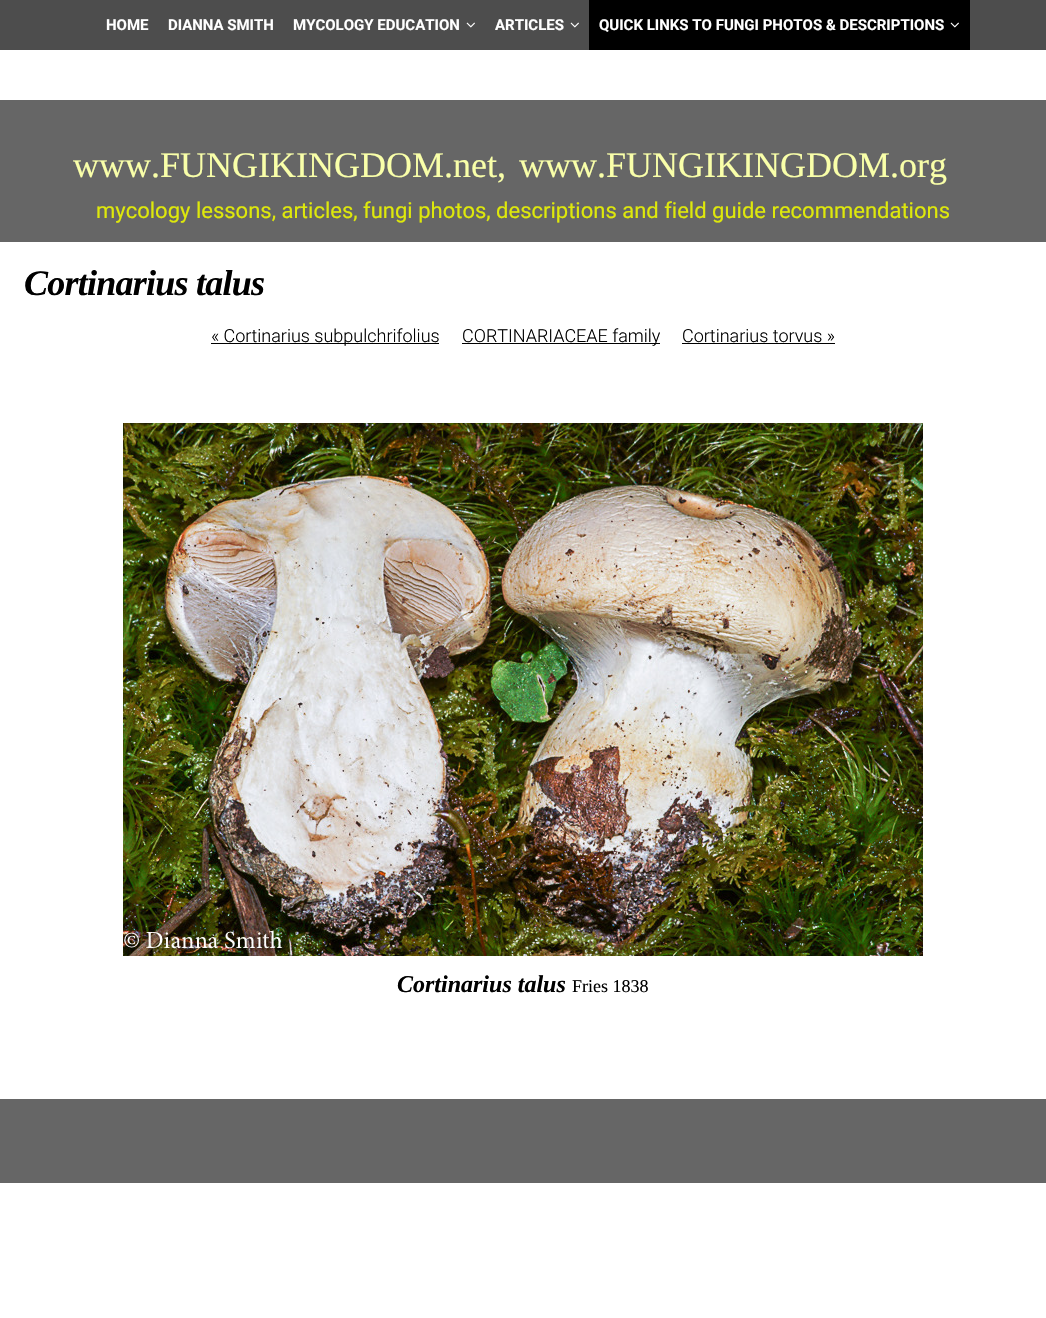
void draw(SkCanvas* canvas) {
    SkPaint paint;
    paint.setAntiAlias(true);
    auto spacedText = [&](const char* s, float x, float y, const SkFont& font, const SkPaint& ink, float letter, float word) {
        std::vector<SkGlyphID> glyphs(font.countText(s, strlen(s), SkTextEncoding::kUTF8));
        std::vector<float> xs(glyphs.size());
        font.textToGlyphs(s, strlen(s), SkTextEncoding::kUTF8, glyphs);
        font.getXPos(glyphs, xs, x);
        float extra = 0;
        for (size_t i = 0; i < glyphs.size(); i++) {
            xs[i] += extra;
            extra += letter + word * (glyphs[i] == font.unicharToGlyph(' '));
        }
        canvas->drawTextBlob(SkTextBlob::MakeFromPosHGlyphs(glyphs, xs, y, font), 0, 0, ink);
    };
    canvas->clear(0xFFFFFFFF);
    paint.setColor(0xFF4D4D4D);
    canvas->drawRect(SkRect::MakeXYWH(0, 0, 1046, 50), paint);
    SkFont font1(fontMgr->matchFamilyStyle("Roboto", SkFontStyle::Bold()), 15);
    font1.setSubpixel(true);
    paint.setColor(0xFFFFFFFF);
    canvas->drawString("HOME", 106, 30, font1, paint);
    canvas->drawString("DIANNA SMITH", 168, 30, font1, paint);
    canvas->drawString("MYCOLOGY EDUCATION", 293, 30, font1, paint);
    canvas->drawImageRect(SkImages::DeferredFromEncodedData(SkData::MakeFromFileName("img1.png")), SkRect::MakeXYWH(466, 22, 9, 6), SkSamplingOptions());
    canvas->drawString("ARTICLES", 495, 30, font1, paint);
    canvas->drawImageRect(SkImages::DeferredFromEncodedData(SkData::MakeFromFileName("img1.png")), SkRect::MakeXYWH(570, 22, 9, 6), SkSamplingOptions());
    paint.setColor(0xFF000000);
    canvas->drawRect(SkRect::MakeXYWH(589, 0, 381, 50), paint);
    paint.setColor(0xFFFFFFFF);
    canvas->drawString("QUICK LINKS TO FUNGI PHOTOS & DESCRIPTIONS", 599, 30, font1, paint);
    canvas->drawImageRect(SkImages::DeferredFromEncodedData(SkData::MakeFromFileName("img2.png")), SkRect::MakeXYWH(950, 22, 9, 6), SkSamplingOptions());
    paint.setColor(0xFF666666);
    canvas->drawRect(SkRect::MakeXYWH(0, 100, 1046, 142), paint);
    SkFont font2(fontMgr->matchFamilyStyle("Liberation Serif", SkFontStyle::Normal()), 36);
    font2.setSubpixel(true);
    paint.setColor(0xFFF9FFA9);
    canvas->drawString("www.FUNGIKINGDOM.net,", 73, 177, font2, paint);
    canvas->drawString("www.FUNGIKINGDOM.org", 519, 177, font2, paint);
    SkFont font3(fontMgr->matchFamilyStyle("Roboto", SkFontStyle::Normal()), 22);
    font3.setSubpixel(true);
    paint.setColor(0xFFDEE80B);
    canvas->drawString("mycology lessons, articles, fungi photos, descriptions and field guide recommendations", 96, 218, font3, paint);
    SkFont font4(fontMgr->matchFamilyStyle("Liberation Serif", SkFontStyle::BoldItalic()), 36);
    font4.setSubpixel(true);
    paint.setColor(0xFF000000);
    spacedText("Cortinarius talus", 24, 295, font4, paint, -0.75f, 0);
    canvas->drawRect(SkRect::MakeXYWH(211, 343, 228, 1), paint);
    SkFont font5(fontMgr->matchFamilyStyle("Roboto", SkFontStyle(300, SkFontStyle::kNormal_Width, SkFontStyle::kUpright_Slant)), 18);
    font5.setSubpixel(true);
    canvas->drawString("« Cortinarius subpulchrifolius", 211, 342, font5, paint);
    canvas->drawRect(SkRect::MakeXYWH(462, 343, 198, 1), paint);
    canvas->drawString("CORTINARIACEAE family", 462, 342, font5, paint);
    canvas->drawString("Cortinarius torvus »", 682, 342, font5, paint);
    canvas->drawRect(SkRect::MakeXYWH(682, 343, 153, 1), paint);
    canvas->drawImageRect(SkImages::DeferredFromEncodedData(SkData::MakeFromFileName("img3.png")), SkRect::MakeXYWH(123, 423, 800, 533), SkSamplingOptions());
    SkFont font6(fontMgr->matchFamilyStyle("Liberation Serif", SkFontStyle::BoldItalic()), 24);
    font6.setSubpixel(true);
    canvas->drawString("Cortinarius talus", 397, 992, font6, paint);
    SkFont font7(fontMgr->matchFamilyStyle("Liberation Serif", SkFontStyle::Normal()), 18);
    font7.setSubpixel(true);
    canvas->drawString("Fries 1838", 572, 992, font7, paint);
    paint.setColor(0xFF666666);
    canvas->drawRect(SkRect::MakeXYWH(0, 1099, 1046, 84), paint);
}
